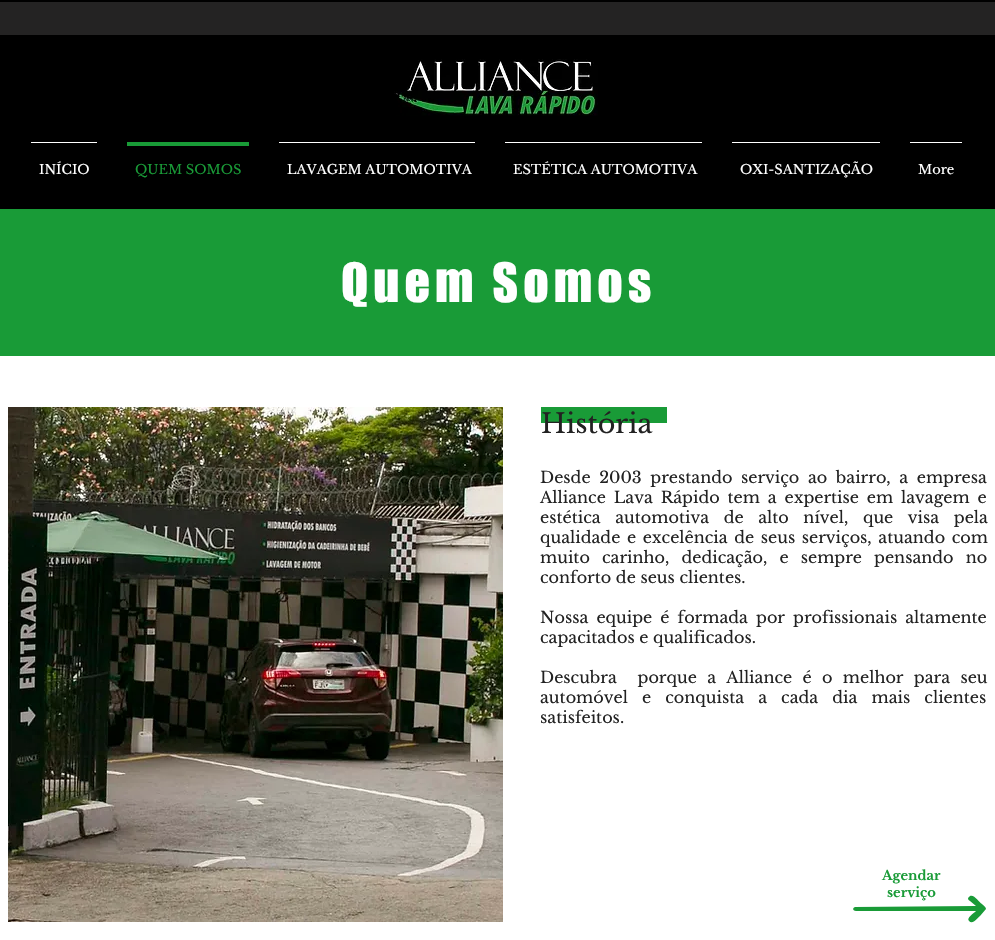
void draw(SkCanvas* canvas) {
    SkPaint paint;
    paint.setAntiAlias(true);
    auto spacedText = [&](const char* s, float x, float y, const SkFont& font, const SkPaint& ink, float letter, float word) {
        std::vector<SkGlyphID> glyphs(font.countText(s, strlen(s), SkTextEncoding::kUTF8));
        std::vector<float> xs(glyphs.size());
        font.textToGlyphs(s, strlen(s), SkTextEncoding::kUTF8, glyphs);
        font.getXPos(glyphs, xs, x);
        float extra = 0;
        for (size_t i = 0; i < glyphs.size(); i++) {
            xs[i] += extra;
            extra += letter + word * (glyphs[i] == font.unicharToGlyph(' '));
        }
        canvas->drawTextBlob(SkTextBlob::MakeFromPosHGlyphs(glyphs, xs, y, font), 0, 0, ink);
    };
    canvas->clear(0xFFFFFFFF);
    paint.setColor(0xFF000000);
    canvas->drawRect(SkRect::MakeXYWH(0, 0, 995, 209), paint);
    paint.setColor(0xFF242323);
    canvas->drawRect(SkRect::MakeXYWH(0, 2, 995, 33), paint);
    canvas->drawImageRect(SkImages::DeferredFromEncodedData(SkData::MakeFromFileName("img1.png")), SkRect::MakeXYWH(394, 59, 204, 57), SkSamplingOptions());
    paint.setColor(0xFFFFFFFF);
    canvas->drawRect(SkRect::MakeXYWH(31, 142, 66, 1), paint);
    SkFont font1(fontMgr->matchFamilyStyle("Libre Baskerville", SkFontStyle::Normal()), 13);
    font1.setSubpixel(true);
    canvas->drawString("INÍCIO", 39, 174, font1, paint);
    paint.setColor(0xFF199B37);
    canvas->drawRect(SkRect::MakeXYWH(127, 142, 122, 4), paint);
    canvas->drawString("QUEM SOMOS", 135, 174, font1, paint);
    paint.setColor(0xFFFFFFFF);
    canvas->drawRect(SkRect::MakeXYWH(279, 142, 196, 1), paint);
    canvas->drawString("LAVAGEM AUTOMOTIVA", 287, 174, font1, paint);
    canvas->drawRect(SkRect::MakeXYWH(505, 142, 197, 1), paint);
    canvas->drawString("ESTÉTICA AUTOMOTIVA", 513, 174, font1, paint);
    canvas->drawRect(SkRect::MakeXYWH(732, 142, 148, 1), paint);
    canvas->drawString("OXI-SANTIZAÇÃO", 740, 174, font1, paint);
    canvas->drawRect(SkRect::MakeXYWH(910, 142, 52, 1), paint);
    canvas->drawString("More", 918, 174, font1, paint);
    paint.setColor(0xFF199B37);
    canvas->drawRect(SkRect::MakeXYWH(0, 209, 995, 147), paint);
    SkFont font2(fontMgr->matchFamilyStyle("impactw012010", SkFontStyle::Normal()), 50);
    font2.setSubpixel(true);
    paint.setColor(0xFFFFFFFF);
    spacedText("Quem Somos", 341, 302, font2, paint, 5, 0);
    canvas->drawImageRect(SkImages::DeferredFromEncodedData(SkData::MakeFromFileName("img2.png")), SkRect::MakeXYWH(8, 407, 495, 515), SkSamplingOptions());
    paint.setColor(0xFF199B37);
    canvas->drawRect(SkRect::MakeXYWH(541, 407, 126, 16), paint);
    SkFont font3(fontMgr->matchFamilyStyle("Libre Baskerville", SkFontStyle::Normal()), 27);
    font3.setSubpixel(true);
    paint.setColor(0xFF222222);
    canvas->drawString("História", 541, 433, font3, paint);
    SkFont font4(fontMgr->matchFamilyStyle("Libre Baskerville", SkFontStyle::Normal()), 16);
    font4.setSubpixel(true);
    spacedText("Desde 2003 prestando serviço ao bairro, a empresa", 540, 483, font4, paint, 0, 4);
    spacedText("Alliance Lava Rápido tem a expertise em lavagem e", 540, 503, font4, paint, 0, 3.25f);
    spacedText("estética automotiva de alto nível, que visa pela", 540, 523, font4, paint, 0, 10);
    spacedText("qualidade e excelência de seus serviços, atuando com", 540, 543, font4, paint, 0, 2);
    spacedText("muito carinho, dedicação, e sempre pensando no", 540, 563, font4, paint, 0, 7.5f);
    canvas->drawString("conforto de seus clientes.", 540, 583, font4, paint);
    spacedText("Nossa equipe é formada por profissionais altamente", 540, 623, font4, paint, 0, 3.5f);
    canvas->drawString("capacitados e qualificados.", 540, 643, font4, paint);
    spacedText("Descubra  porque a Alliance é o melhor para seu", 540, 683, font4, paint, 0, 5.75f);
    spacedText("automóvel e conquista a cada dia mais clientes", 540, 703, font4, paint, 0, 9.5f);
    canvas->drawString("satisfeitos.", 540, 723, font4, paint);
    SkFont font5(fontMgr->matchFamilyStyle("Libre Baskerville", SkFontStyle::Bold()), 13);
    font5.setSubpixel(true);
    paint.setColor(0xFF199B37);
    canvas->drawString("Agendar", 882, 880, font5, paint);
    canvas->drawString("serviço", 887, 897, font5, paint);
    canvas->drawPath(SkPathBuilder().moveTo(856, 911).lineTo(976, 911).cubicTo(974, 913, 966, 918, 969, 921).cubicTo(973, 925, 977, 918, 980, 916).lineTo(986, 909).cubicTo(986, 907, 983, 905, 982, 904).cubicTo(979, 902, 974, 894, 970, 896).lineTo(968, 898).cubicTo(968, 900, 969, 900, 970, 901).lineTo(976, 906).lineTo(855, 907).cubicTo(852, 908, 853, 911, 856, 911).close().detach(), paint);
}
